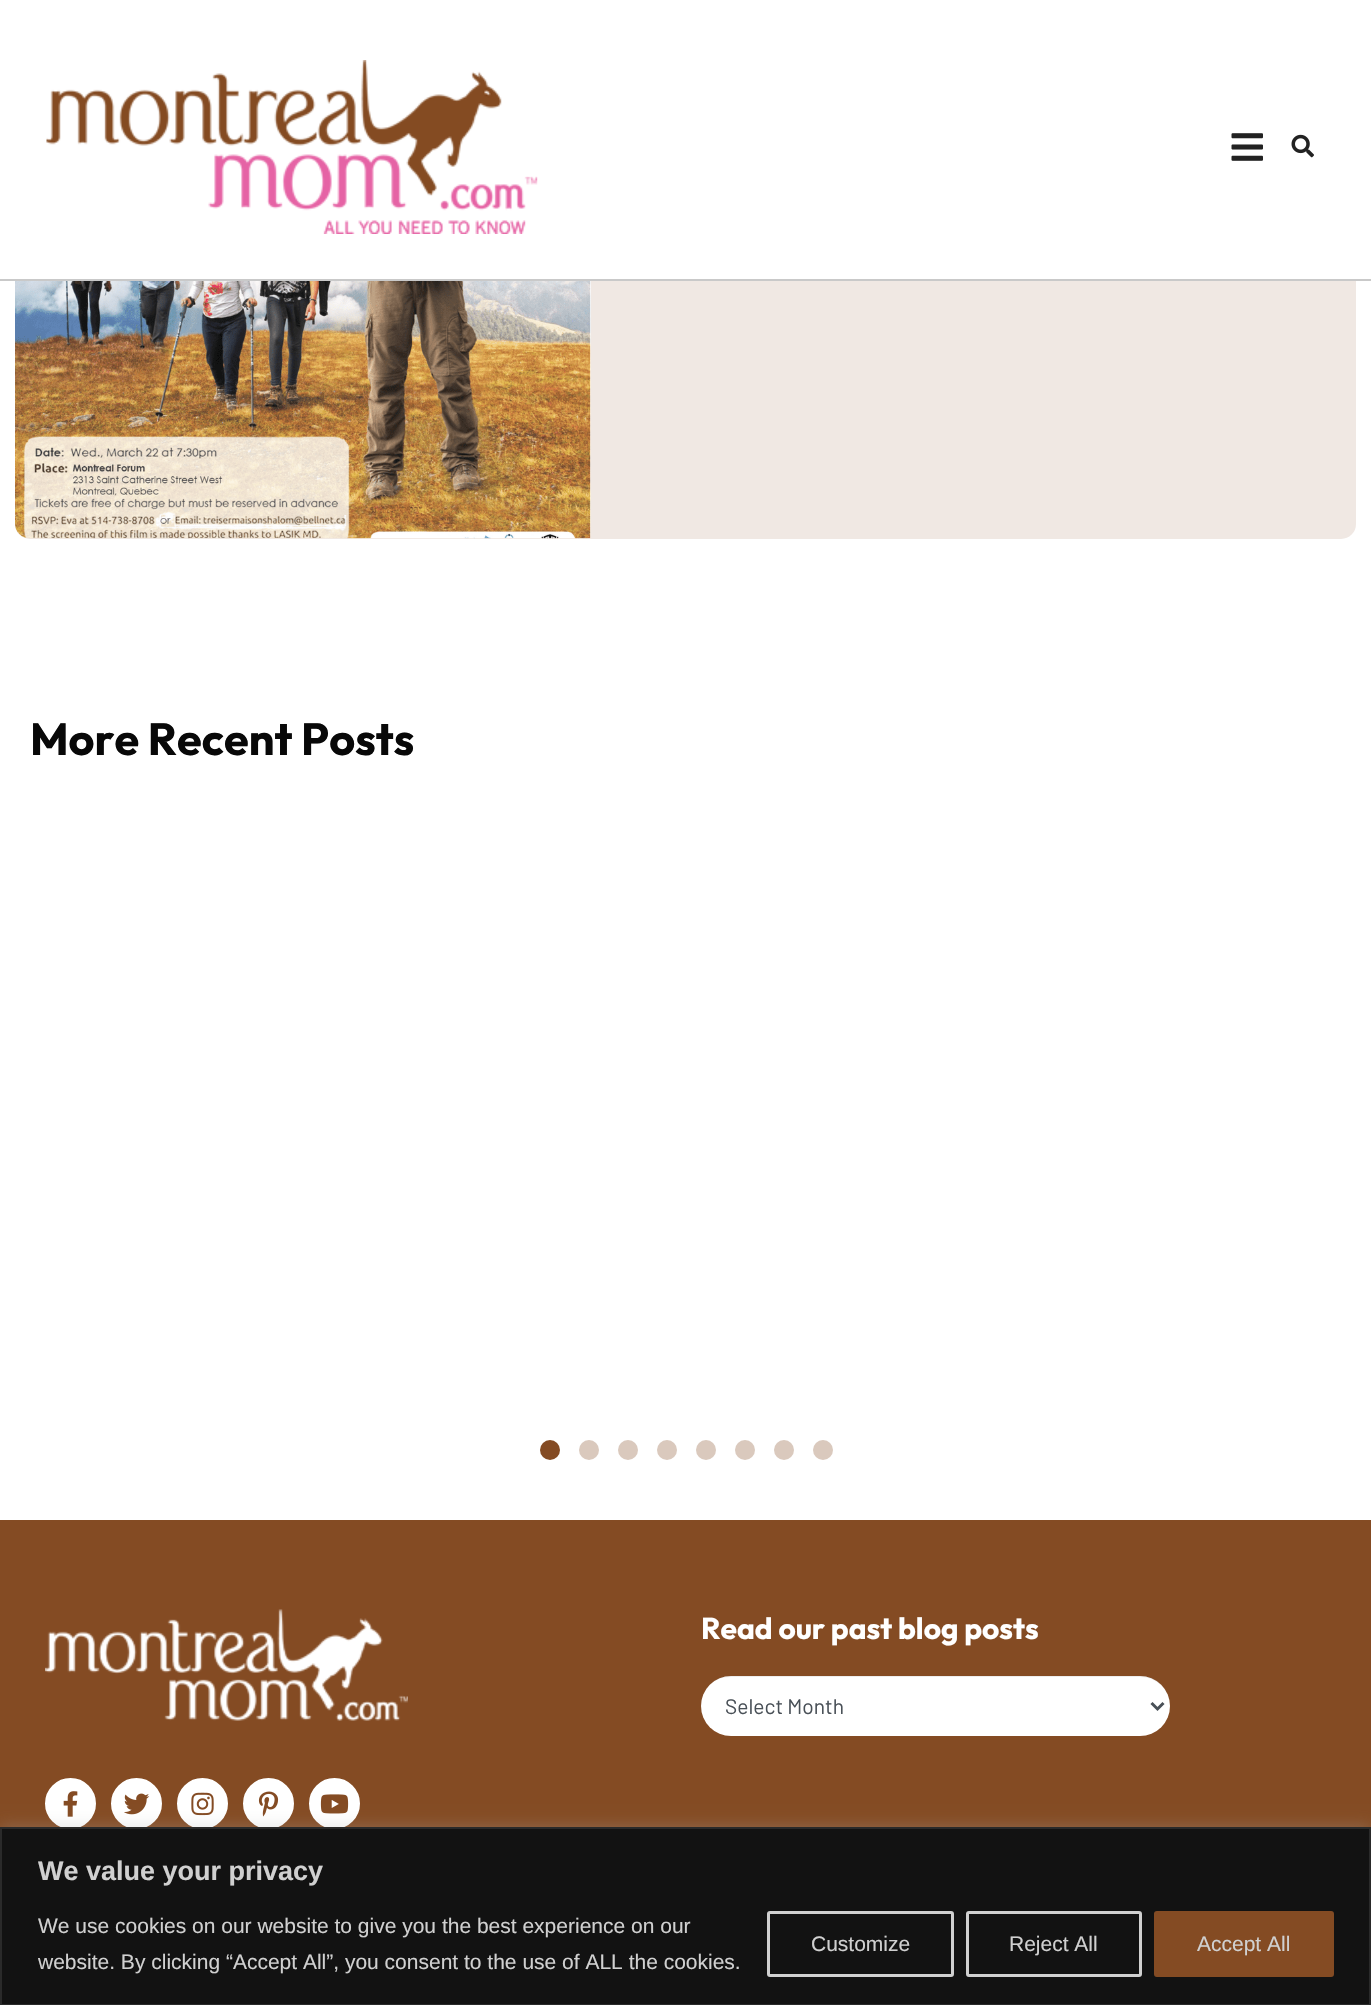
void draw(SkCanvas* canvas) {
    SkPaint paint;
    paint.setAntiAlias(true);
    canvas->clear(0xFFFFFFFF);
    paint.setColor(0xFFF0E8E3);
    canvas->drawRoundRect(SkRect::MakeXYWH(15, -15, 1341, 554), 15, 15, paint);
    canvas->drawImageRect(SkImages::DeferredFromEncodedData(SkData::MakeFromFileName("img1.png")), SkRect::MakeXYWH(15, 281, 576, 258), SkSamplingOptions());
    paint.setColor(0xFFFFFFFF);
    canvas->drawRect(SkRect::MakeXYWH(15, 0, 1341, 279), paint);
    paint.setColor(0xFFC9C9C9);
    canvas->drawRect(SkRect::MakeXYWH(0, 279, 1371, 2), paint);
    canvas->drawImageRect(SkImages::DeferredFromEncodedData(SkData::MakeFromFileName("img2.png")), SkRect::MakeXYWH(46, 60, 492, 174), SkSamplingOptions());
    canvas->drawImageRect(SkImages::DeferredFromEncodedData(SkData::MakeFromFileName("img3.png")), SkRect::MakeXYWH(1231, 133, 32, 28), SkSamplingOptions());
    canvas->drawImageRect(SkImages::DeferredFromEncodedData(SkData::MakeFromFileName("img4.png")), SkRect::MakeXYWH(1291, 134, 23, 24), SkSamplingOptions());
    SkFont font1(fontMgr->matchFamilyStyle("Outfit", SkFontStyle::Bold()), 45);
    font1.setSubpixel(true);
    paint.setColor(0xFF080808);
    canvas->drawString("More Recent Posts", 30, 755, font1, paint);
    paint.setColor(0xFF844B23);
    canvas->drawCircle(550, 1450, 10, paint);
    paint.setColor(0xFFDAC9BD);
    canvas->drawCircle(589, 1450, 10, paint);
    canvas->drawCircle(628, 1450, 10, paint);
    canvas->drawCircle(667, 1450, 10, paint);
    canvas->drawCircle(706, 1450, 10, paint);
    canvas->drawCircle(745, 1450, 10, paint);
    canvas->drawCircle(784, 1450, 10, paint);
    canvas->drawCircle(823, 1450, 10, paint);
    paint.setColor(0xFF844B23);
    canvas->drawRect(SkRect::MakeXYWH(0, 1520, 1371, 307), paint);
    canvas->drawImageRect(SkImages::DeferredFromEncodedData(SkData::MakeFromFileName("img5.png")), SkRect::MakeXYWH(45, 1609, 363, 112), SkSamplingOptions());
    paint.setColor(0xFFFFFFFF);
    canvas->drawCircle(70.5f, 1803.5f, 24.5f, paint);
    paint.setStyle(SkPaint::kStroke_Style);
    paint.setStrokeWidth(2);
    canvas->drawCircle(70.5f, 1803.5f, 24.5f, paint);
    canvas->drawImageRect(SkImages::DeferredFromEncodedData(SkData::MakeFromFileName("img6.png")), SkRect::MakeXYWH(63, 1791, 15, 26), SkSamplingOptions());
    paint.setStyle(SkPaint::kFill_Style);
    canvas->drawCircle(136.5f, 1803.5f, 24.5f, paint);
    paint.setStyle(SkPaint::kStroke_Style);
    canvas->drawCircle(136.5f, 1803.5f, 24.5f, paint);
    canvas->drawImageRect(SkImages::DeferredFromEncodedData(SkData::MakeFromFileName("img7.png")), SkRect::MakeXYWH(124, 1793, 26, 22), SkSamplingOptions());
    paint.setStyle(SkPaint::kFill_Style);
    canvas->drawCircle(202.5f, 1803.5f, 24.5f, paint);
    paint.setStyle(SkPaint::kStroke_Style);
    canvas->drawCircle(202.5f, 1803.5f, 24.5f, paint);
    canvas->drawImageRect(SkImages::DeferredFromEncodedData(SkData::MakeFromFileName("img8.png")), SkRect::MakeXYWH(191, 1792, 23, 24), SkSamplingOptions());
    paint.setStyle(SkPaint::kFill_Style);
    canvas->drawCircle(268.5f, 1803.5f, 24.5f, paint);
    paint.setStyle(SkPaint::kStroke_Style);
    canvas->drawCircle(268.5f, 1803.5f, 24.5f, paint);
    canvas->drawImageRect(SkImages::DeferredFromEncodedData(SkData::MakeFromFileName("img9.png")), SkRect::MakeXYWH(258, 1791, 21, 26), SkSamplingOptions());
    paint.setStyle(SkPaint::kFill_Style);
    canvas->drawCircle(334.5f, 1803.5f, 24.5f, paint);
    paint.setStyle(SkPaint::kStroke_Style);
    canvas->drawCircle(334.5f, 1803.5f, 24.5f, paint);
    canvas->drawImageRect(SkImages::DeferredFromEncodedData(SkData::MakeFromFileName("img10.png")), SkRect::MakeXYWH(320, 1794, 29, 20), SkSamplingOptions());
    SkFont font2(fontMgr->matchFamilyStyle("Outfit", SkFontStyle::Bold()), 30);
    font2.setSubpixel(true);
    paint.setStyle(SkPaint::kFill_Style);
    canvas->drawString("Read our past blog posts", 701, 1639, font2, paint);
    canvas->drawRoundRect(SkRect::MakeXYWH(701, 1676, 469, 60), 30, 30, paint);
    paint.setColor(0x12000000);
    canvas->drawPath(SkPathBuilder().moveTo(730, 1677).lineTo(1140, 1677).cubicTo(1157, 1677, 1170, 1690, 1170, 1706).cubicTo(1170, 1689, 1157, 1676, 1140, 1676).lineTo(731, 1676).cubicTo(722, 1676, 714, 1680, 709, 1686).cubicTo(714, 1680, 722, 1677, 730, 1677).close().detach(), paint);
    paint.setStyle(SkPaint::kStroke_Style);
    paint.setStrokeWidth(3);
    paint.setColor(0xFF495057);
    canvas->drawPath(SkPathBuilder().moveTo(1151.5f, 1703).lineTo(1157.5f, 1709).lineTo(1163.5f, 1703).detach(), paint);
    SkFont font3(fontMgr->matchFamilyStyle("Barlow", SkFontStyle::Normal()), 21);
    font3.setSubpixel(true);
    paint.setStyle(SkPaint::kFill_Style);
    canvas->drawString("Select Month", 725, 1714, font3, paint);
    paint.setColor(0x4DACABAB);
    paint.setMaskFilter(SkMaskFilter::MakeBlur(kNormal_SkBlurStyle, 7.5f));
    canvas->drawRect(SkRect::MakeXYWH(0, 1826, 1371, 178), paint);
    paint.setMaskFilter(nullptr);
    paint.setColor(0xFF121212);
    canvas->drawRect(SkRect::MakeXYWH(1, 1828, 1369, 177), paint);
    paint.setStyle(SkPaint::kStroke_Style);
    paint.setStrokeWidth(2);
    paint.setColor(0xFF2A2A2A);
    canvas->drawRect(SkRect::MakeXYWH(1, 1828, 1369, 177), paint);
    SkFont font4(fontMgr->matchFamilyStyle("Liberation Sans", SkFontStyle::Bold()), 27);
    font4.setSubpixel(true);
    paint.setStyle(SkPaint::kFill_Style);
    paint.setColor(0xFFD0D0D0);
    canvas->drawString("We value your privacy", 38, 1880, font4, paint);
    SkFont font5(fontMgr->matchFamilyStyle("Liberation Sans", SkFontStyle::Normal()), 21);
    font5.setSubpixel(true);
    canvas->drawString("We use cookies on our website to give you the best experience on our", 38, 1933, font5, paint);
    canvas->drawString("website. By clicking “Accept All”, you consent to the use of ALL the cookies.", 38, 1969, font5, paint);
    paint.setStyle(SkPaint::kStroke_Style);
    paint.setStrokeWidth(3);
    canvas->drawRoundRect(SkRect::MakeXYWH(768.5f, 1912.5f, 184, 63), 1.5f, 1.5f, paint);
    paint.setStyle(SkPaint::kFill_Style);
    canvas->drawString("Customize", 811, 1951, font5, paint);
    paint.setStyle(SkPaint::kStroke_Style);
    canvas->drawRoundRect(SkRect::MakeXYWH(967.5f, 1912.5f, 173, 63), 1.5f, 1.5f, paint);
    paint.setStyle(SkPaint::kFill_Style);
    canvas->drawString("Reject All", 1009, 1951, font5, paint);
    paint.setColor(0xFF844B23);
    canvas->drawRoundRect(SkRect::MakeXYWH(1155.5f, 1912.5f, 177, 63), 1.5f, 1.5f, paint);
    paint.setStyle(SkPaint::kStroke_Style);
    canvas->drawRoundRect(SkRect::MakeXYWH(1155.5f, 1912.5f, 177, 63), 1.5f, 1.5f, paint);
    paint.setStyle(SkPaint::kFill_Style);
    paint.setColor(0xFFD0D0D0);
    canvas->drawString("Accept All", 1197, 1951, font5, paint);
}
